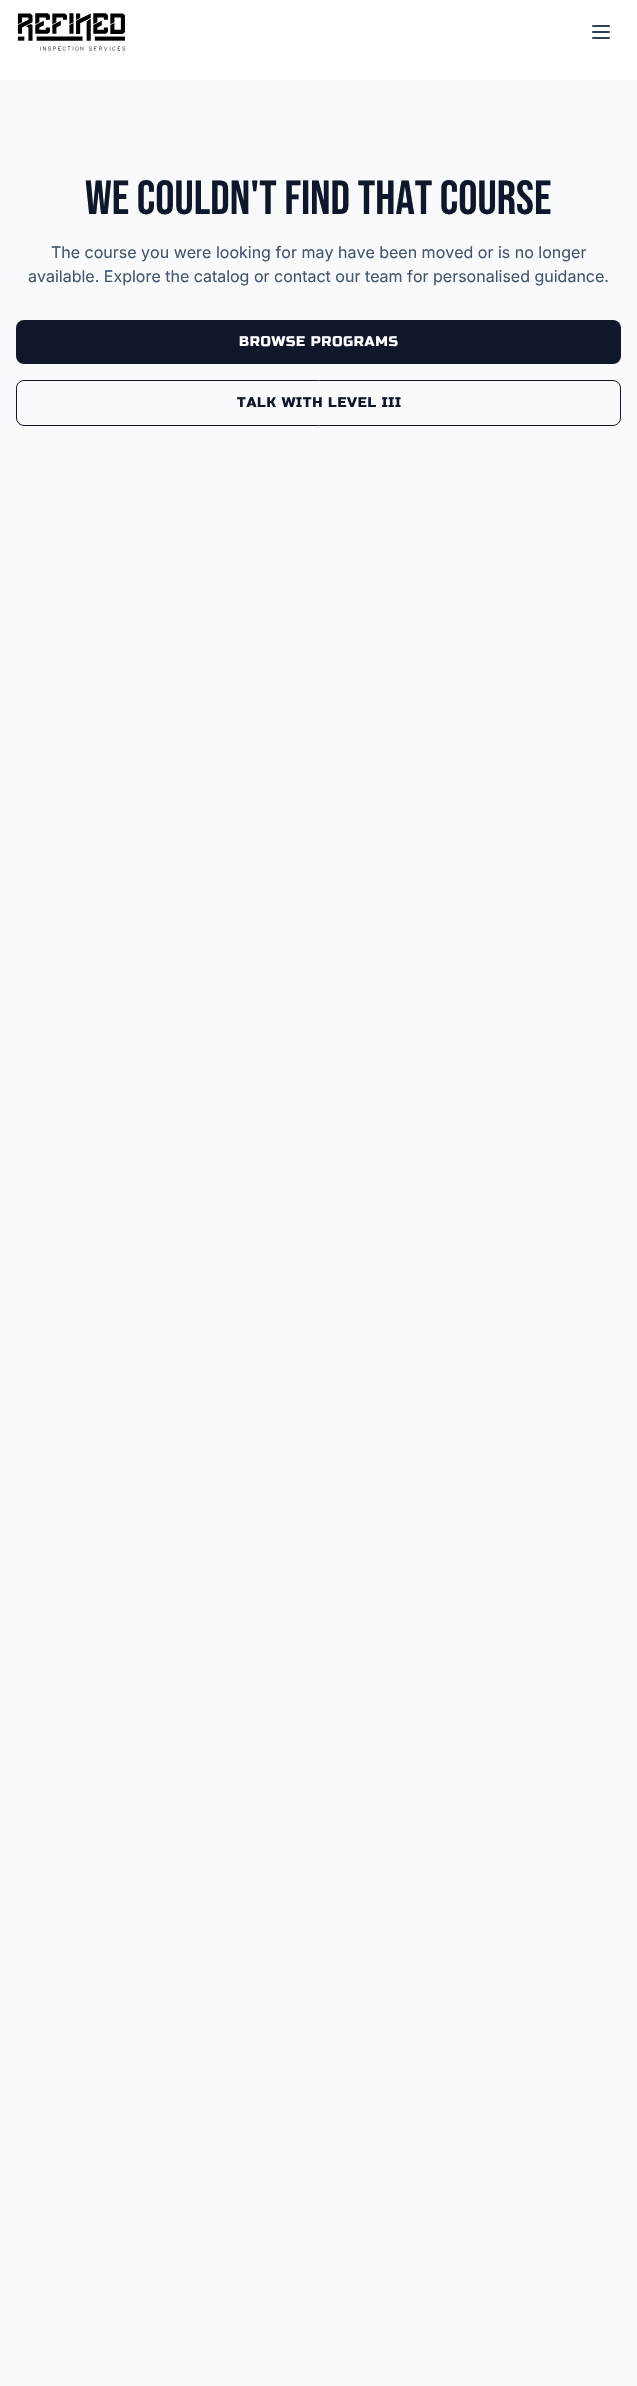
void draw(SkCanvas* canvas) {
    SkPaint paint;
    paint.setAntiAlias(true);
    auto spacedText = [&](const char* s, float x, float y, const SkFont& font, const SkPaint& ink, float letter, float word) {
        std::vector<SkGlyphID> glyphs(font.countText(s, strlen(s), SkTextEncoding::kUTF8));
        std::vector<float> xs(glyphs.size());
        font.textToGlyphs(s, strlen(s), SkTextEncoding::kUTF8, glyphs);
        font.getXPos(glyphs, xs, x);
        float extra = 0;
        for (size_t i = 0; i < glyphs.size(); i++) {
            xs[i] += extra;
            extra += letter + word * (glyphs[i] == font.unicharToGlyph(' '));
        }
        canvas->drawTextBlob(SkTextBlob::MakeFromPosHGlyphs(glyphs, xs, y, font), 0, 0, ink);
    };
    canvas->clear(0xFFFFFFFF);
    canvas->drawImageRect(SkImages::DeferredFromEncodedData(SkData::MakeFromFileName("img1.png")), SkRect::MakeXYWH(17, 13, 109, 38), SkSamplingOptions());
    paint.setStyle(SkPaint::kStroke_Style);
    paint.setStrokeWidth(2);
    paint.setStrokeCap(SkPaint::kRound_Cap);
    paint.setStrokeJoin(SkPaint::kRound_Join);
    paint.setColor(0xFF314158);
    canvas->drawPath(SkPathBuilder().moveTo(593, 26).lineTo(609, 26).moveTo(593, 32).lineTo(609, 32).moveTo(593, 38).lineTo(609, 38).detach(), paint);
    paint.setStyle(SkPaint::kFill_Style);
    paint.setColor(0xFFF8FAFC);
    canvas->drawRect(SkRect::MakeXYWH(0, 80, 637, 2306), paint);
    SkFont font1(fontMgr->matchFamilyStyle("Bebas Neue", SkFontStyle::Normal()), 48);
    font1.setSubpixel(true);
    paint.setColor(0xFF0F172B);
    canvas->drawString("We couldn't find that course", 85, 214, font1, paint);
    SkFont font2(fontMgr->matchFamilyStyle("Inter", SkFontStyle::Normal()), 16);
    font2.setSubpixel(true);
    paint.setColor(0xFF45556C);
    canvas->drawString("The course you were looking for may have been moved or is no longer", 51, 258, font2, paint);
    canvas->drawString("available. Explore the catalog or contact our team for personalised guidance.", 28, 282, font2, paint);
    paint.setColor(0xFF0F172B);
    canvas->drawRoundRect(SkRect::MakeXYWH(16, 320, 605, 44), 8, 8, paint);
    SkFont font3(fontMgr->matchFamilyStyle("Russo One", SkFontStyle::Normal()), 14);
    font3.setSubpixel(true);
    paint.setColor(0xFFFFFFFF);
    spacedText("BROWSE PROGRAMS", 239, 346, font3, paint, 0.75f, 0);
    paint.setStyle(SkPaint::kStroke_Style);
    paint.setStrokeWidth(1);
    paint.setStrokeCap(SkPaint::kButt_Cap);
    paint.setStrokeJoin(SkPaint::kMiter_Join);
    paint.setColor(0xFF0F172B);
    canvas->drawRoundRect(SkRect::MakeXYWH(16.5f, 380.5f, 604, 45), 7.5f, 7.5f, paint);
    paint.setStyle(SkPaint::kFill_Style);
    spacedText("TALK WITH LEVEL III", 237, 407, font3, paint, 0.75f, 0);
}
